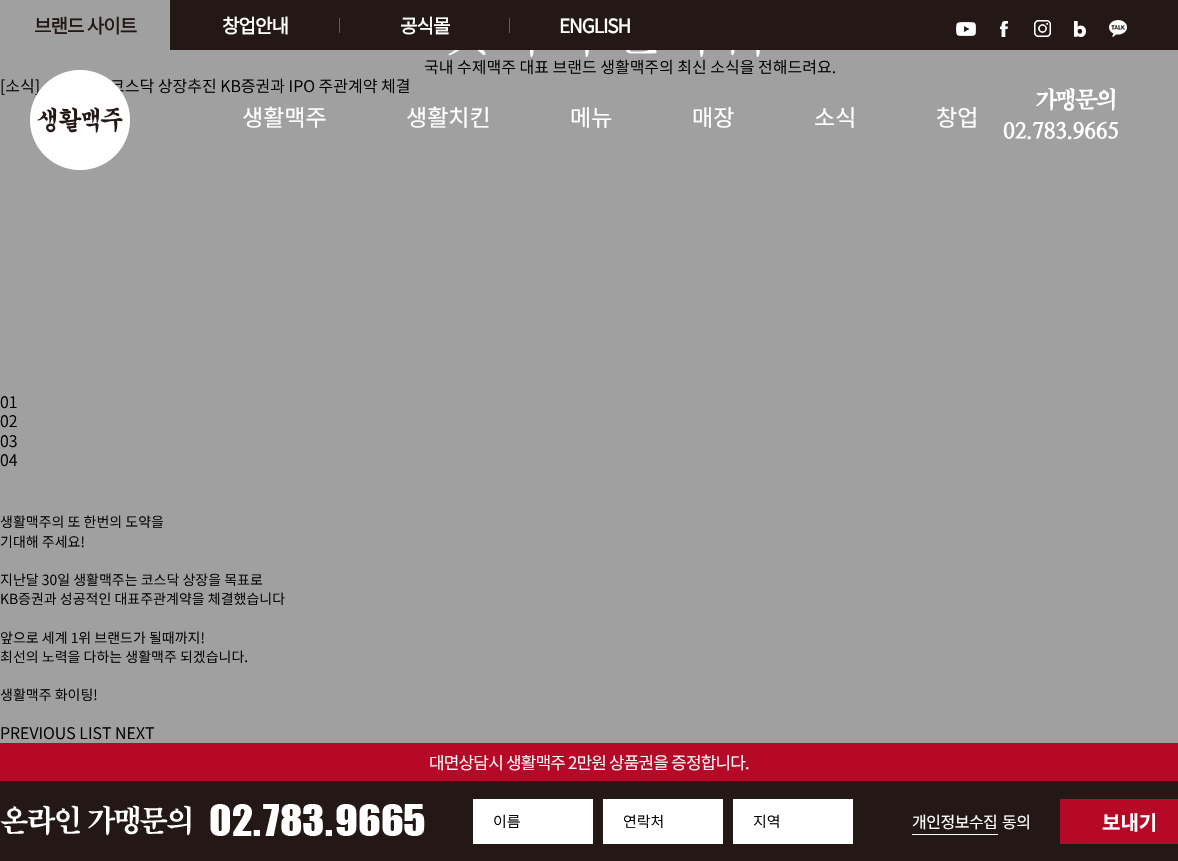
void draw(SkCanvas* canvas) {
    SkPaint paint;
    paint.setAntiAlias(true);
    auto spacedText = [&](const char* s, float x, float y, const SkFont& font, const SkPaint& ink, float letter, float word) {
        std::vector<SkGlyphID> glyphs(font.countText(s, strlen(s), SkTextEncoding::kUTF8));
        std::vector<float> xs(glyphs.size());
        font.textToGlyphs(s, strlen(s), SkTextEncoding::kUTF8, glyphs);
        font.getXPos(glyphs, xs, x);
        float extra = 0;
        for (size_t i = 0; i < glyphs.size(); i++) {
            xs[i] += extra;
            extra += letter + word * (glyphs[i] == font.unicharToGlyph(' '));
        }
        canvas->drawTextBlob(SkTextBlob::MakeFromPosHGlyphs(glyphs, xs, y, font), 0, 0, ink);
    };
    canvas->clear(0xFFA0A0A0);
    paint.setColor(0xFF231815);
    canvas->drawRect(SkRect::MakeXYWH(170, 0, 1008, 50), paint);
    SkFont font1(fontMgr->matchFamilyStyle("Noto Sans KR", SkFontStyle::Bold()), 19);
    font1.setSubpixel(true);
    spacedText("브랜드 사이트", 34, 33, font1, paint, -1, 0);
    paint.setColor(0xFFFFFFFF);
    spacedText("창업안내", 222, 33, font1, paint, -1, 0);
    paint.setColor(0xFF655D5B);
    canvas->drawRect(SkRect::MakeXYWH(339, 18, 1, 15), paint);
    paint.setColor(0xFFFFFFFF);
    spacedText("공식몰", 400, 33, font1, paint, -1, 0);
    paint.setColor(0xFF655D5B);
    canvas->drawRect(SkRect::MakeXYWH(509, 18, 1, 15), paint);
    paint.setColor(0xFFFFFFFF);
    spacedText("ENGLISH", 559, 33, font1, paint, -1, 0);
    canvas->drawImageRect(SkImages::DeferredFromEncodedData(SkData::MakeFromFileName("img1.png")), SkRect::MakeXYWH(956, 22, 20, 14), SkSamplingOptions());
    canvas->drawImageRect(SkImages::DeferredFromEncodedData(SkData::MakeFromFileName("img2.png")), SkRect::MakeXYWH(1000, 21, 8, 16), SkSamplingOptions());
    canvas->drawImageRect(SkImages::DeferredFromEncodedData(SkData::MakeFromFileName("img3.png")), SkRect::MakeXYWH(1034, 20, 17, 17), SkSamplingOptions());
    canvas->drawImageRect(SkImages::DeferredFromEncodedData(SkData::MakeFromFileName("img4.png")), SkRect::MakeXYWH(1074, 21, 12, 16), SkSamplingOptions());
    canvas->drawImageRect(SkImages::DeferredFromEncodedData(SkData::MakeFromFileName("img5.png")), SkRect::MakeXYWH(1109, 20, 18, 17), SkSamplingOptions());
    canvas->drawImageRect(SkImages::DeferredFromEncodedData(SkData::MakeFromFileName("img6.png")), SkRect::MakeXYWH(448, 50, 312, 7), SkSamplingOptions());
    SkFont font2(fontMgr->matchFamilyStyle("Noto Sans KR", SkFontStyle(300, SkFontStyle::kNormal_Width, SkFontStyle::kUpright_Slant)), 16);
    font2.setSubpixel(true);
    paint.setColor(0xFF000000);
    canvas->drawString("국내 수제맥주 대표 브랜드 생활맥주의 최신 소식을 전해드려요.", 424, 73, font2, paint);
    canvas->drawString("[소식]", 0, 92, font2, paint);
    canvas->drawString("코스닥 상장추진 KB증권과 IPO 주관계약 체결", 110, 92, font2, paint);
    SkFont font3(fontMgr->matchFamilyStyle("Noto Sans KR", SkFontStyle(300, SkFontStyle::kNormal_Width, SkFontStyle::kUpright_Slant)), 14);
    font3.setSubpixel(true);
    canvas->drawString("생활맥주의 또 한번의 도약을", 0, 527, font3, paint);
    canvas->drawString("기대해 주세요!", 0, 547, font3, paint);
    canvas->drawString("지난달 30일 생활맥주는 코스닥 상장을 목표로", 0, 585, font3, paint);
    canvas->drawString("KB증권과 성공적인 대표주관계약을 체결했습니다", 0, 604, font3, paint);
    canvas->drawString("앞으로 세계 1위 브랜드가 될때까지!", 0, 643, font3, paint);
    canvas->drawString("최선의 노력을 다하는 생활맥주 되겠습니다.", 0, 662, font3, paint);
    canvas->drawString("생활맥주 화이팅!", 0, 700, font3, paint);
    canvas->drawString("PREVIOUS LIST NEXT", 0, 739, font2, paint);
    canvas->drawString("01", 0, 408, font2, paint);
    canvas->drawString("02", 0, 427, font2, paint);
    canvas->drawString("03", 0, 447, font2, paint);
    canvas->drawString("04", 0, 466, font2, paint);
    canvas->drawImageRect(SkImages::DeferredFromEncodedData(SkData::MakeFromFileName("img7.png")), SkRect::MakeXYWH(30, 70, 100, 100), SkSamplingOptions());
    SkFont font4(fontMgr->matchFamilyStyle("Noto Sans KR", SkFontStyle::Normal()), 23);
    font4.setSubpixel(true);
    paint.setColor(0xFFFFFFFF);
    canvas->drawString("생활맥주", 242, 126, font4, paint);
    canvas->drawString("생활치킨", 406, 126, font4, paint);
    canvas->drawString("메뉴", 570, 126, font4, paint);
    canvas->drawString("매장", 692, 126, font4, paint);
    canvas->drawString("소식", 814, 126, font4, paint);
    canvas->drawString("창업", 936, 126, font4, paint);
    canvas->drawImageRect(SkImages::DeferredFromEncodedData(SkData::MakeFromFileName("img8.png")), SkRect::MakeXYWH(1003, 88, 115, 52), SkSamplingOptions());
    paint.setColor(0xFFB60928);
    canvas->drawRect(SkRect::MakeXYWH(0, 743, 1178, 38), paint);
    SkFont font5(fontMgr->matchFamilyStyle("Noto Sans KR", SkFontStyle(300, SkFontStyle::kNormal_Width, SkFontStyle::kUpright_Slant)), 17);
    font5.setSubpixel(true);
    paint.setColor(0xFFFFFFFF);
    spacedText("대면상담시 생활맥주 2만원 상품권을 증정합니다.", 429, 769, font5, paint, -0.85f, 0);
    paint.setColor(0xFF231816);
    canvas->drawRect(SkRect::MakeXYWH(0, 781, 1178, 80), paint);
    canvas->drawImageRect(SkImages::DeferredFromEncodedData(SkData::MakeFromFileName("img9.png")), SkRect::MakeXYWH(0, 804, 425, 32), SkSamplingOptions());
    paint.setColor(0xFFFFFFFF);
    canvas->drawRect(SkRect::MakeXYWH(473, 799, 120, 45), paint);
    SkFont font6(fontMgr->matchFamilyStyle("Noto Sans KR", SkFontStyle(300, SkFontStyle::kNormal_Width, SkFontStyle::kUpright_Slant)), 15);
    font6.setSubpixel(true);
    paint.setColor(0xFF000000);
    canvas->drawString("이름", 493, 827, font6, paint);
    paint.setColor(0xFFFFFFFF);
    canvas->drawRect(SkRect::MakeXYWH(603, 799, 120, 45), paint);
    paint.setColor(0xFF000000);
    canvas->drawString("연락처", 623, 827, font6, paint);
    paint.setColor(0xFFFFFFFF);
    canvas->drawRect(SkRect::MakeXYWH(733, 799, 120, 45), paint);
    paint.setColor(0xFF000000);
    canvas->drawString("지역", 753, 827, font6, paint);
    SkFont font7(fontMgr->matchFamilyStyle("Noto Sans KR", SkFontStyle::Normal()), 16);
    font7.setSubpixel(true);
    paint.setColor(0xFFFFFFFF);
    spacedText("개인정보수집", 912, 828, font7, paint, -0.5f, 0);
    canvas->drawRect(SkRect::MakeXYWH(912, 834, 86, 1), paint);
    spacedText("동의", 1002, 828, font7, paint, -0.5f, 0);
    paint.setColor(0xFFB60928);
    canvas->drawRect(SkRect::MakeXYWH(1060, 799, 118, 45), paint);
    SkFont font8(fontMgr->matchFamilyStyle("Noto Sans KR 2", SkFontStyle::Bold()), 20);
    font8.setSubpixel(true);
    paint.setColor(0xFFFFFFFF);
    canvas->drawString("보내기", 1102, 830, font8, paint);
}
